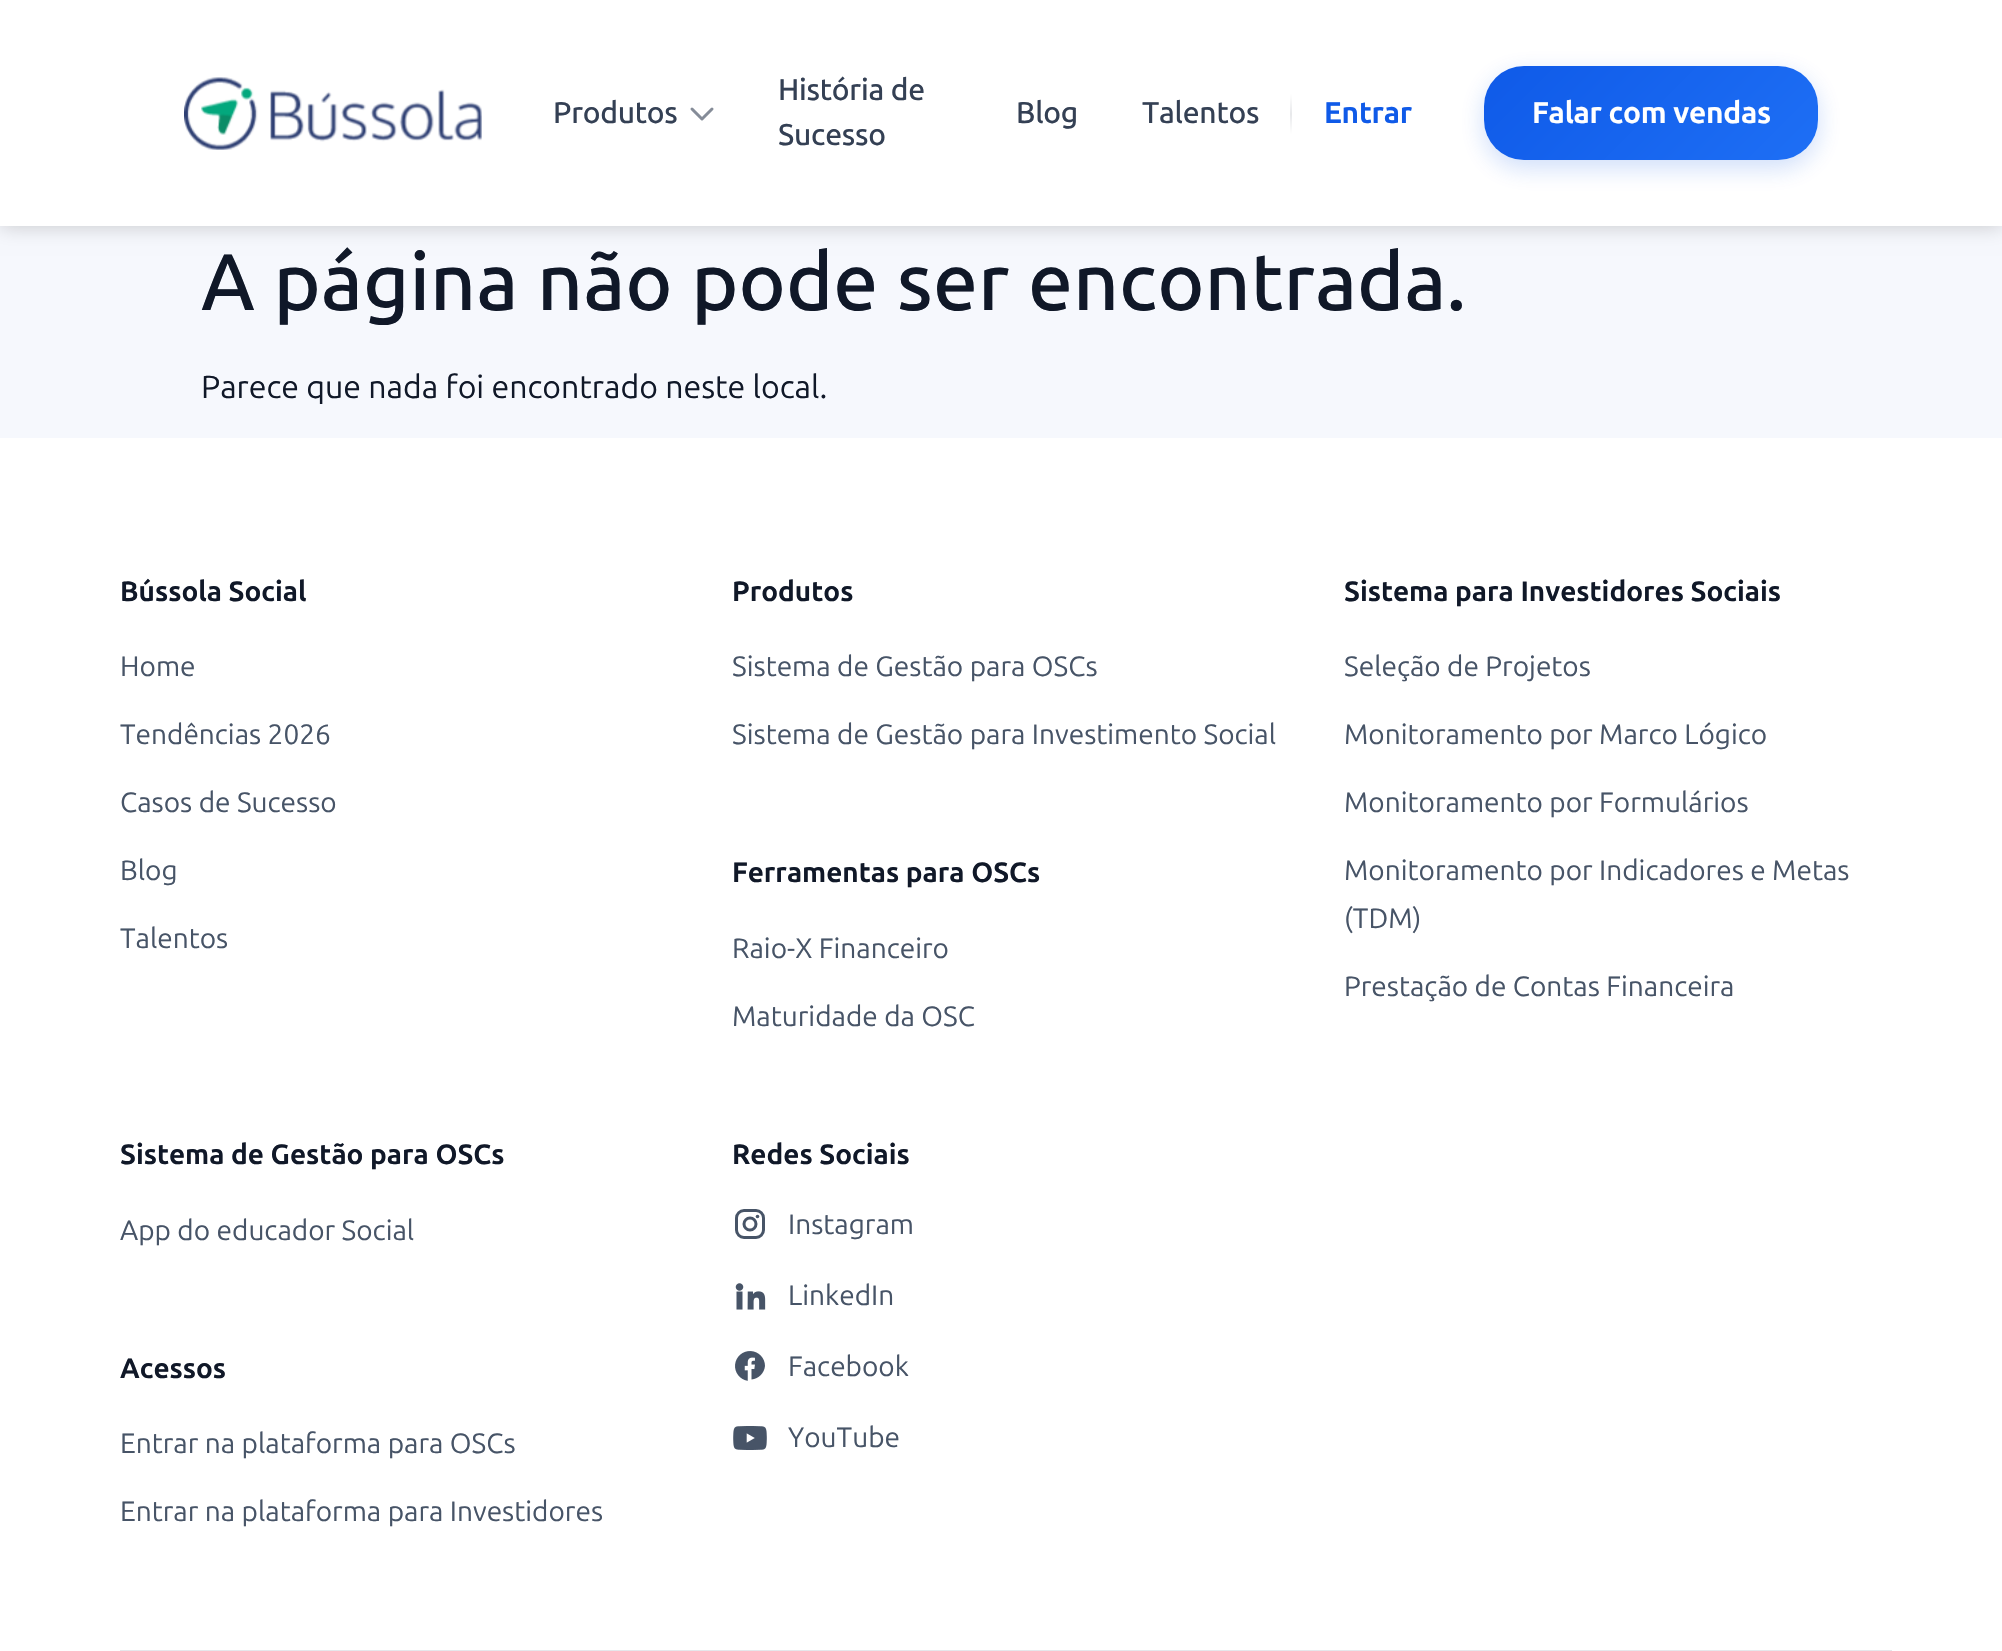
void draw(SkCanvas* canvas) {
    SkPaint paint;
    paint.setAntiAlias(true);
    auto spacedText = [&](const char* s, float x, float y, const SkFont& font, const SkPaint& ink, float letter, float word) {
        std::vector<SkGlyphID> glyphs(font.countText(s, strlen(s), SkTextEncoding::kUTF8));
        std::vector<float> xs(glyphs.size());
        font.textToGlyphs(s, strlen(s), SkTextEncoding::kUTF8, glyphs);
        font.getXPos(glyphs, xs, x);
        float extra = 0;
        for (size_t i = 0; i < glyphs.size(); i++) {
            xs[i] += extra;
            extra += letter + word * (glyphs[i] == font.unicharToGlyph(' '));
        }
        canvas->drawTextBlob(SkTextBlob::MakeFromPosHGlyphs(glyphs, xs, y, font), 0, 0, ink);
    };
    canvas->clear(0xFFF6F8FD);
    paint.setColor(0x33000000);
    paint.setMaskFilter(SkMaskFilter::MakeBlur(kNormal_SkBlurStyle, 10));
    canvas->drawRect(SkRect::MakeXYWH(0, 0, 2002, 226), paint);
    paint.setMaskFilter(nullptr);
    paint.setColor(0xFFFFFFFF);
    canvas->drawRect(SkRect::MakeXYWH(0, 0, 2002, 226), paint);
    canvas->drawImageRect(SkImages::DeferredFromEncodedData(SkData::MakeFromFileName("img1.png")), SkRect::MakeXYWH(184, 77, 298, 73), SkSamplingOptions());
    SkFont font1(fontMgr->matchFamilyStyle("Ubuntu", SkFontStyle(500, SkFontStyle::kNormal_Width, SkFontStyle::kUpright_Slant)), 30);
    font1.setSubpixel(true);
    paint.setColor(0xFF344054);
    spacedText("Produtos", 553, 123, font1, paint, -0.25f, 0);
    paint.setStyle(SkPaint::kStroke_Style);
    paint.setStrokeWidth(3);
    paint.setStrokeCap(SkPaint::kRound_Cap);
    paint.setStrokeJoin(SkPaint::kRound_Join);
    paint.setColor(0xFF858C98);
    canvas->drawPath(SkPathBuilder().moveTo(692, 109).lineTo(702, 119).lineTo(712, 109).detach(), paint);
    paint.setStyle(SkPaint::kFill_Style);
    paint.setColor(0xFF344054);
    spacedText("História de", 778, 100, font1, paint, -0.25f, 0);
    spacedText("Sucesso", 778, 145, font1, paint, -0.25f, 0);
    spacedText("Blog", 1016, 123, font1, paint, -0.25f, 0);
    spacedText("Talentos", 1142, 123, font1, paint, -0.25f, 0);
    {
        const SkColor colors[] = {0xFFFFFFFF, 0xFFE7E8EA, 0xFFFFFFFF};
        const float stops[] = {0, 0.5f, 1};
        const SkPoint ends[] = {{1291, 94}, {1291, 134}};
        paint.setShader(SkGradientShader::MakeLinear(ends, colors, stops, 3, SkTileMode::kClamp));
        paint.setAlpha(255);
    }
    canvas->drawRect(SkRect::MakeXYWH(1290, 94, 2, 40), paint);
    SkFont font2(fontMgr->matchFamilyStyle("Ubuntu", SkFontStyle::Bold()), 30);
    font2.setSubpixel(true);
    paint.setShader(nullptr);
    paint.setColor(0xFF0F5AE8);
    spacedText("Entrar", 1324, 123, font2, paint, -0.25f, 0);
    paint.setColor(0x330F5AE8);
    paint.setMaskFilter(SkMaskFilter::MakeBlur(kNormal_SkBlurStyle, 12));
    canvas->drawRoundRect(SkRect::MakeXYWH(1484, 74, 334, 94), 40, 40, paint);
    paint.setMaskFilter(nullptr);
    {
        const SkColor colors[] = {0xFF0F5AE8, 0xFF1E6FF5};
        const float stops[] = {0, 1};
        const SkPoint ends[] = {{1544, 6}, {1758, 220}};
        paint.setShader(SkGradientShader::MakeLinear(ends, colors, stops, 2, SkTileMode::kClamp));
        paint.setAlpha(255);
    }
    canvas->drawRoundRect(SkRect::MakeXYWH(1484, 66, 334, 94), 40, 40, paint);
    paint.setShader(nullptr);
    paint.setColor(0xFFFFFFFF);
    spacedText("Falar com vendas", 1532, 123, font2, paint, -0.25f, 0);
    SkFont font3(fontMgr->matchFamilyStyle("Ubuntu", SkFontStyle(500, SkFontStyle::kNormal_Width, SkFontStyle::kUpright_Slant)), 80);
    font3.setSubpixel(true);
    paint.setColor(0xFF101828);
    canvas->drawString("A página não pode ser encontrada.", 201, 310, font3, paint);
    SkFont font4(fontMgr->matchFamilyStyle("Ubuntu", SkFontStyle::Normal()), 32);
    font4.setSubpixel(true);
    canvas->drawString("Parece que nada foi encontrado neste local.", 201, 398, font4, paint);
    paint.setColor(0xFFFFFFFF);
    canvas->drawRect(SkRect::MakeXYWH(0, 438, 2002, 1213), paint);
    SkFont font5(fontMgr->matchFamilyStyle("Ubuntu", SkFontStyle::Bold()), 28);
    font5.setSubpixel(true);
    paint.setColor(0xFF101828);
    canvas->drawString("Bússola Social", 120, 601, font5, paint);
    SkFont font6(fontMgr->matchFamilyStyle("Ubuntu", SkFontStyle::Normal()), 28);
    font6.setSubpixel(true);
    paint.setColor(0xFF475467);
    canvas->drawString("Home", 120, 676, font6, paint);
    canvas->drawString("Tendências 2026", 120, 744, font6, paint);
    canvas->drawString("Casos de Sucesso", 120, 812, font6, paint);
    canvas->drawString("Blog", 120, 880, font6, paint);
    canvas->drawString("Talentos", 120, 948, font6, paint);
    paint.setColor(0xFF101828);
    canvas->drawString("Produtos", 732, 601, font5, paint);
    paint.setColor(0xFF475467);
    canvas->drawString("Sistema de Gestão para OSCs", 732, 676, font6, paint);
    canvas->drawString("Sistema de Gestão para Investimento Social", 732, 744, font6, paint);
    paint.setColor(0xFF101828);
    canvas->drawString("Ferramentas para OSCs", 732, 882, font5, paint);
    paint.setColor(0xFF475467);
    canvas->drawString("Raio-X Financeiro", 732, 958, font6, paint);
    canvas->drawString("Maturidade da OSC", 732, 1026, font6, paint);
    paint.setColor(0xFF101828);
    canvas->drawString("Sistema para Investidores Sociais", 1344, 601, font5, paint);
    paint.setColor(0xFF475467);
    canvas->drawString("Seleção de Projetos", 1344, 676, font6, paint);
    canvas->drawString("Monitoramento por Marco Lógico", 1344, 744, font6, paint);
    canvas->drawString("Monitoramento por Formulários", 1344, 812, font6, paint);
    canvas->drawString("Monitoramento por Indicadores e Metas", 1344, 880, font6, paint);
    canvas->drawString("(TDM)", 1344, 928, font6, paint);
    canvas->drawString("Prestação de Contas Financeira", 1344, 996, font6, paint);
    paint.setColor(0xFF101828);
    canvas->drawString("Sistema de Gestão para OSCs", 120, 1164, font5, paint);
    paint.setColor(0xFF475467);
    canvas->drawString("App do educador Social", 120, 1240, font6, paint);
    paint.setColor(0xFF101828);
    canvas->drawString("Acessos", 120, 1378, font5, paint);
    paint.setColor(0xFF475467);
    canvas->drawString("Entrar na plataforma para OSCs", 120, 1453, font6, paint);
    canvas->drawString("Entrar na plataforma para Investidores", 120, 1521, font6, paint);
    paint.setColor(0xFF101828);
    canvas->drawString("Redes Sociais", 732, 1164, font5, paint);
    paint.setStyle(SkPaint::kStroke_Style);
    paint.setStrokeCap(SkPaint::kButt_Cap);
    paint.setStrokeJoin(SkPaint::kMiter_Join);
    paint.setColor(0xFF475467);
    canvas->drawRoundRect(SkRect::MakeXYWH(736.5f, 1210.5f, 27, 27), 7.5f, 7.5f, paint);
    canvas->drawCircle(750, 1224, 6, paint);
    paint.setStyle(SkPaint::kFill_Style);
    canvas->drawCircle(757.5f, 1216.5f, 1.8f, paint);
    canvas->drawString("Instagram", 788, 1234, font6, paint);
    canvas->drawImageRect(SkImages::DeferredFromEncodedData(SkData::MakeFromFileName("img2.png")), SkRect::MakeXYWH(735, 1283, 31, 27), SkSamplingOptions());
    canvas->drawString("LinkedIn", 788, 1305, font6, paint);
    canvas->drawImageRect(SkImages::DeferredFromEncodedData(SkData::MakeFromFileName("img3.png")), SkRect::MakeXYWH(735, 1351, 30, 30), SkSamplingOptions());
    canvas->drawString("Facebook", 788, 1376, font6, paint);
    canvas->drawImageRect(SkImages::DeferredFromEncodedData(SkData::MakeFromFileName("img4.png")), SkRect::MakeXYWH(733, 1426, 34, 24), SkSamplingOptions());
    canvas->drawString("YouTube", 788, 1447, font6, paint);
    paint.setColor(0xFFE5E7EB);
    canvas->drawRect(SkRect::MakeXYWH(120, 1650, 1772, 1), paint);
}
